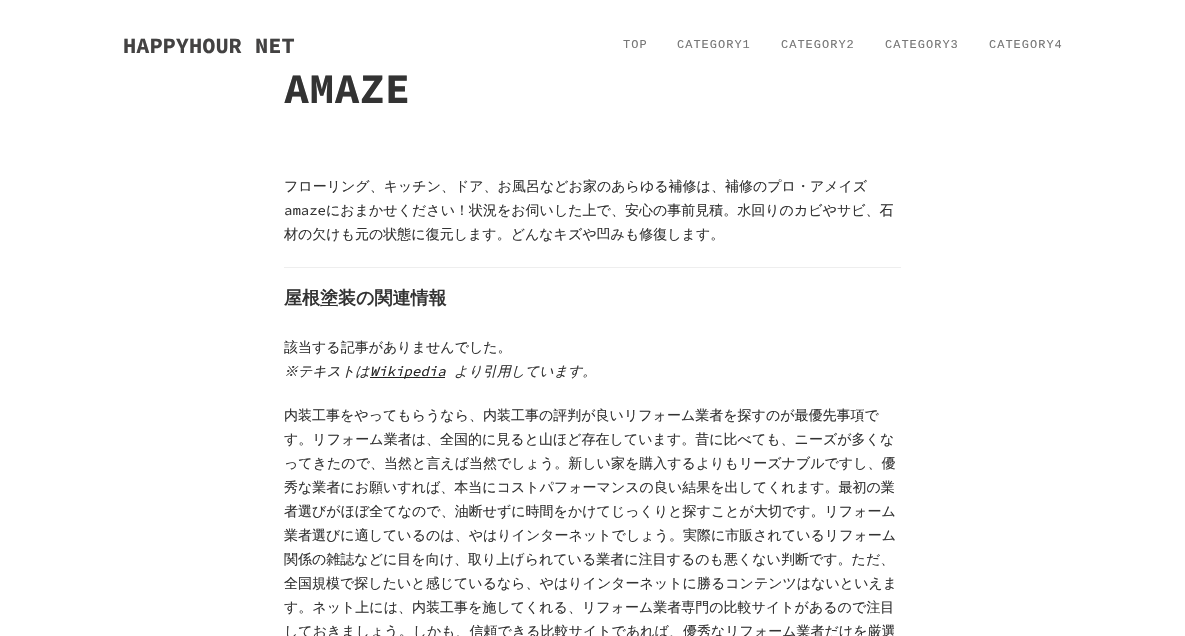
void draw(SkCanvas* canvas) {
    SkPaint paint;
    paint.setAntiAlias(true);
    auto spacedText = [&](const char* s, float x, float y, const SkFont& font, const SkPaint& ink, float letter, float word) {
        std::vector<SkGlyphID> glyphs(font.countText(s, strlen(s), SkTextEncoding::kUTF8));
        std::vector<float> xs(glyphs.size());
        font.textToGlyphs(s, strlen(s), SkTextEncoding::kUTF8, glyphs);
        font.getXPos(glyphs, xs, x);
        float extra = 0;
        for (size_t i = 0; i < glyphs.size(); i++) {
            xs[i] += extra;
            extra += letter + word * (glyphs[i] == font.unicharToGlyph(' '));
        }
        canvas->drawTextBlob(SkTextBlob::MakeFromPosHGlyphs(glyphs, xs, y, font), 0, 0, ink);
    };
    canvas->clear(0xFFFFFFFF);
    SkFont font1(fontMgr->matchFamilyStyle("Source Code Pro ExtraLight", SkFontStyle::Bold()), 22);
    font1.setSubpixel(true);
    paint.setColor(0xFF434242);
    canvas->drawString("HAPPYHOUR NET", 123, 53, font1, paint);
    SkFont font2(fontMgr->matchFamilyStyle("Liberation Mono", SkFontStyle::Normal()), 12);
    font2.setSubpixel(true);
    paint.setColor(0xFF777777);
    spacedText("TOP", 623, 48, font2, paint, 1, 0);
    spacedText("CATEGORY1", 677, 48, font2, paint, 1, 0);
    spacedText("CATEGORY2", 781, 48, font2, paint, 1, 0);
    spacedText("CATEGORY3", 885, 48, font2, paint, 1, 0);
    spacedText("CATEGORY4", 989, 48, font2, paint, 1, 0);
    SkFont font3(fontMgr->matchFamilyStyle("Source Code Pro ExtraLight", SkFontStyle::Bold()), 42);
    font3.setSubpixel(true);
    paint.setColor(0xFF333333);
    canvas->drawString("AMAZE", 284, 103, font3, paint);
    SkFont font4(fontMgr->matchFamilyStyle("WenQuanYi Zen Hei", SkFontStyle(500, SkFontStyle::kNormal_Width, SkFontStyle::kUpright_Slant)), 14);
    font4.setSubpixel(true);
    canvas->drawString("フローリング、キッチン、ドア、お風呂などお家のあらゆる補修は、補修のプロ・アメイズ", 284, 191, font4, paint);
    SkFont font5(fontMgr->matchFamilyStyle("Source Code Pro ExtraLight", SkFontStyle::Normal()), 14);
    font5.setSubpixel(true);
    canvas->drawString("amaze", 284, 215, font5, paint);
    canvas->drawString("におまかせください！状況をお伺いした上で、安心の事前見積。水回りのカビやサビ、石", 326, 215, font4, paint);
    canvas->drawString("材の欠けも元の状態に復元します。どんなキズや凹みも修復します。", 284, 239, font4, paint);
    paint.setColor(0xFFEEEEEE);
    canvas->drawRect(SkRect::MakeXYWH(284, 267, 617, 1), paint);
    SkFont font6(fontMgr->matchFamilyStyle("WenQuanYi Zen Hei", SkFontStyle::Bold()), 18);
    font6.setSubpixel(true);
    paint.setColor(0xFF333333);
    canvas->drawString("屋根塗装の関連情報", 284, 304, font6, paint);
    canvas->drawString("該当する記事がありませんでした。", 284, 352, font4, paint);
    SkFont font7(fontMgr->matchFamilyStyle("WenQuanYi Zen Hei", SkFontStyle(500, SkFontStyle::kNormal_Width, SkFontStyle::kItalic_Slant)), 14);
    font7.setSubpixel(true);
    canvas->drawString("※テキストは", 284, 376, font7, paint);
    paint.setColor(0xFF222222);
    canvas->drawRect(SkRect::MakeXYWH(370, 377, 75, 1), paint);
    SkFont font8(fontMgr->matchFamilyStyle("Source Code Pro ExtraLight", SkFontStyle::Italic()), 14);
    font8.setSubpixel(true);
    canvas->drawString("Wikipedia", 370, 376, font8, paint);
    paint.setColor(0xFF333333);
    canvas->drawString("より引用しています。", 454, 376, font7, paint);
    canvas->drawString("内装工事をやってもらうなら、内装工事の評判が良いリフォーム業者を探すのが最優先事項で", 284, 420, font4, paint);
    canvas->drawString("す。リフォーム業者は、全国的に見ると山ほど存在しています。昔に比べても、ニーズが多くな", 284, 444, font4, paint);
    canvas->drawString("ってきたので、当然と言えば当然でしょう。新しい家を購入するよりもリーズナブルですし、優", 284, 468, font4, paint);
    canvas->drawString("秀な業者にお願いすれば、本当にコストパフォーマンスの良い結果を出してくれます。最初の業", 284, 492, font4, paint);
    canvas->drawString("者選びがほぼ全てなので、油断せずに時間をかけてじっくりと探すことが大切です。リフォーム", 284, 516, font4, paint);
    canvas->drawString("業者選びに適しているのは、やはりインターネットでしょう。実際に市販されているリフォーム", 284, 540, font4, paint);
    canvas->drawString("関係の雑誌などに目を向け、取り上げられている業者に注目するのも悪くない判断です。ただ、", 284, 564, font4, paint);
    canvas->drawString("全国規模で探したいと感じているなら、やはりインターネットに勝るコンテンツはないといえま", 284, 588, font4, paint);
    canvas->drawString("す。ネット上には、内装工事を施してくれる、リフォーム業者専門の比較サイトがあるので注目", 284, 612, font4, paint);
    canvas->drawString("しておきましょう。しかも、信頼できる比較サイトであれば、優秀なリフォーム業者だけを厳選", 284, 636, font4, paint);
}
